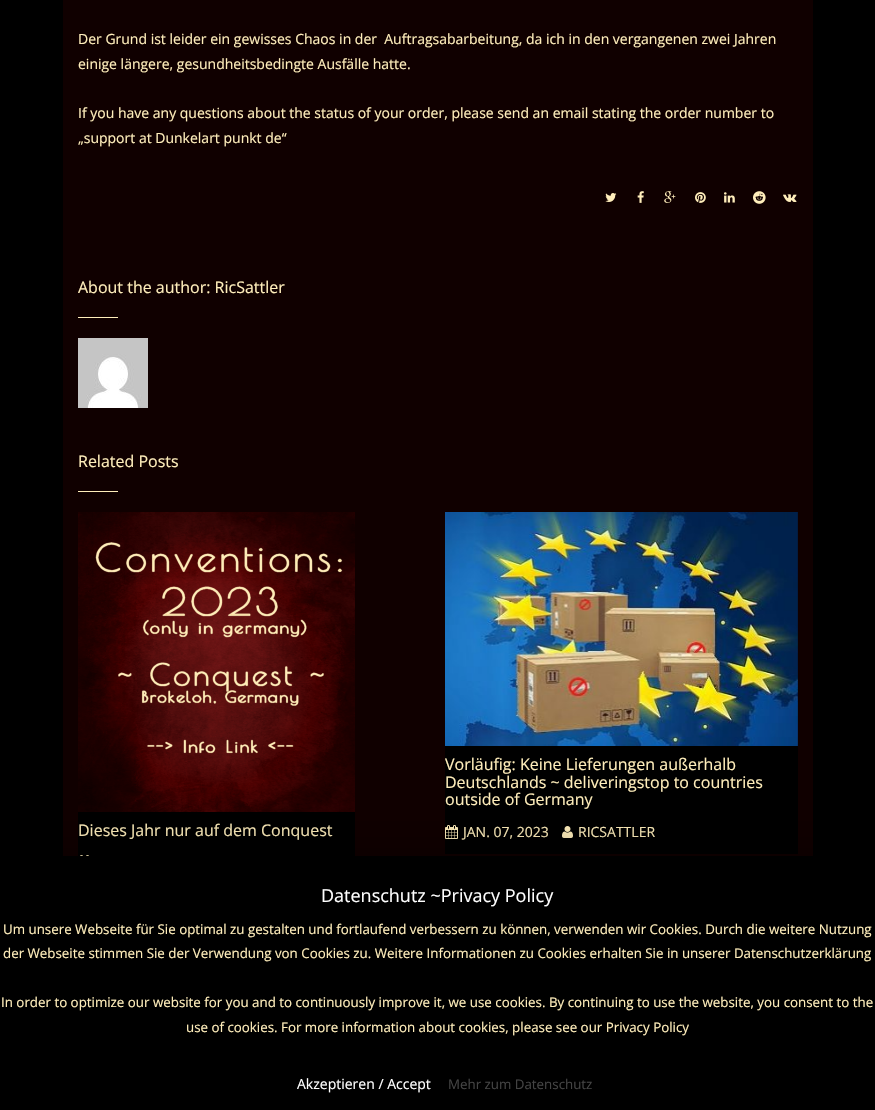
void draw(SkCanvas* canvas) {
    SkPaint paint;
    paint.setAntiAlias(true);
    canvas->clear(0xFF000000);
    paint.setColor(0xFF100000);
    canvas->drawRect(SkRect::MakeXYWH(63, 0, 750, 856), paint);
    SkFont font1(fontMgr->matchFamilyStyle("Open Sans", SkFontStyle::Normal()), 14);
    font1.setSubpixel(true);
    paint.setColor(0xFFFFEEBB);
    canvas->drawString("Der Grund ist leider ein gewisses Chaos in der  Auftragsabarbeitung, da ich in den vergangenen zwei Jahren", 78, 44, font1, paint);
    canvas->drawString("einige längere, gesundheitsbedingte Ausfälle hatte.", 78, 69, font1, paint);
    canvas->drawString("If you have any questions about the status of your order, please send an email stating the order number to", 78, 118, font1, paint);
    canvas->drawString("„support at Dunkelart punkt de“", 78, 143, font1, paint);
    canvas->drawImageRect(SkImages::DeferredFromEncodedData(SkData::MakeFromFileName("img1.png")), SkRect::MakeXYWH(605, 193, 12, 9), SkSamplingOptions());
    canvas->drawImageRect(SkImages::DeferredFromEncodedData(SkData::MakeFromFileName("img2.png")), SkRect::MakeXYWH(637, 191, 7, 12), SkSamplingOptions());
    canvas->drawImageRect(SkImages::DeferredFromEncodedData(SkData::MakeFromFileName("img3.png")), SkRect::MakeXYWH(664, 191, 12, 12), SkSamplingOptions());
    canvas->drawImageRect(SkImages::DeferredFromEncodedData(SkData::MakeFromFileName("img4.png")), SkRect::MakeXYWH(695, 192, 11, 11), SkSamplingOptions());
    canvas->drawImageRect(SkImages::DeferredFromEncodedData(SkData::MakeFromFileName("img5.png")), SkRect::MakeXYWH(724, 192, 11, 11), SkSamplingOptions());
    canvas->drawImageRect(SkImages::DeferredFromEncodedData(SkData::MakeFromFileName("img6.png")), SkRect::MakeXYWH(753, 191, 13, 13), SkSamplingOptions());
    canvas->drawImageRect(SkImages::DeferredFromEncodedData(SkData::MakeFromFileName("img7.png")), SkRect::MakeXYWH(783, 194, 14, 8), SkSamplingOptions());
    SkFont font2(fontMgr->matchFamilyStyle("Open Sans", SkFontStyle::Normal()), 16);
    font2.setSubpixel(true);
    canvas->drawString("About the author: RicSattler", 78, 293, font2, paint);
    canvas->drawRect(SkRect::MakeXYWH(78, 317, 40, 1), paint);
    canvas->drawImageRect(SkImages::DeferredFromEncodedData(SkData::MakeFromFileName("img8.png")), SkRect::MakeXYWH(78, 338, 70, 70), SkSamplingOptions());
    canvas->drawString("Related Posts", 78, 467, font2, paint);
    canvas->drawRect(SkRect::MakeXYWH(78, 491, 40, 1), paint);
    canvas->drawImageRect(SkImages::DeferredFromEncodedData(SkData::MakeFromFileName("img9.png")), SkRect::MakeXYWH(78, 512, 277, 300), SkSamplingOptions());
    paint.setColor(0xFF000000);
    canvas->drawRect(SkRect::MakeXYWH(78, 812, 277, 44), paint);
    paint.setColor(0xFFFFEEBB);
    canvas->drawString("Dieses Jahr nur auf dem Conquest", 78, 836, font2, paint);
    canvas->drawImageRect(SkImages::DeferredFromEncodedData(SkData::MakeFromFileName("img10.png")), SkRect::MakeXYWH(80, 855, 9, 1), SkSamplingOptions());
    canvas->drawImageRect(SkImages::DeferredFromEncodedData(SkData::MakeFromFileName("img11.png")), SkRect::MakeXYWH(445, 512, 353, 234), SkSamplingOptions());
    paint.setColor(0xFF000000);
    canvas->drawRect(SkRect::MakeXYWH(445, 746, 353, 108), paint);
    paint.setColor(0xFFFFEEBB);
    canvas->drawString("Vorläufig: Keine Lieferungen außerhalb", 445, 770, font2, paint);
    canvas->drawString("Deutschlands ~ deliveringstop to countries", 445, 788, font2, paint);
    canvas->drawString("outside of Germany", 445, 805, font2, paint);
    canvas->drawImageRect(SkImages::DeferredFromEncodedData(SkData::MakeFromFileName("img12.png")), SkRect::MakeXYWH(445, 825, 13, 14), SkSamplingOptions());
    canvas->drawString("JAN. 07, 2023", 463, 837, font1, paint);
    canvas->drawImageRect(SkImages::DeferredFromEncodedData(SkData::MakeFromFileName("img13.png")), SkRect::MakeXYWH(562, 826, 11, 12), SkSamplingOptions());
    canvas->drawString("RICSATTLER", 578, 837, font1, paint);
    paint.setColor(0x80000000);
    paint.setMaskFilter(SkMaskFilter::MakeBlur(kNormal_SkBlurStyle, 25));
    canvas->drawRect(SkRect::MakeXYWH(0, 861, 875, 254), paint);
    paint.setMaskFilter(nullptr);
    SkFont font3(fontMgr->matchFamilyStyle("Open Sans", SkFontStyle::Normal()), 18);
    font3.setSubpixel(true);
    paint.setColor(0xFFFFFFFF);
    canvas->drawString("Datenschutz ~Privacy Policy", 321, 902, font3, paint);
    SkFont font4(fontMgr->matchFamilyStyle("Open Sans", SkFontStyle::Normal()), 13.33f);
    font4.setSubpixel(true);
    paint.setColor(0xFFFFEEBB);
    canvas->drawString("Um unsere Webseite für Sie optimal zu gestalten und fortlaufend verbessern zu können, verwenden wir Cookies. Durch die weitere Nutzung", 3, 934, font4, paint);
    canvas->drawString("der Webseite stimmen Sie der Verwendung von Cookies zu. Weitere Informationen zu Cookies erhalten Sie in unserer Datenschutzerklärung", 3, 958, font4, paint);
    canvas->drawString("In order to optimize our website for you and to continuously improve it, we use cookies. By continuing to use the website, you consent to the", 1, 1007, font4, paint);
    canvas->drawString("use of cookies. For more information about cookies, please see our Privacy Policy", 186, 1032, font4, paint);
    paint.setColor(0xFFFFFFFF);
    canvas->drawString("Akzeptieren / Accept", 297, 1089, font1, paint);
    paint.setColor(0xFF444444);
    canvas->drawString("Mehr zum Datenschutz", 448, 1089, font4, paint);
}
